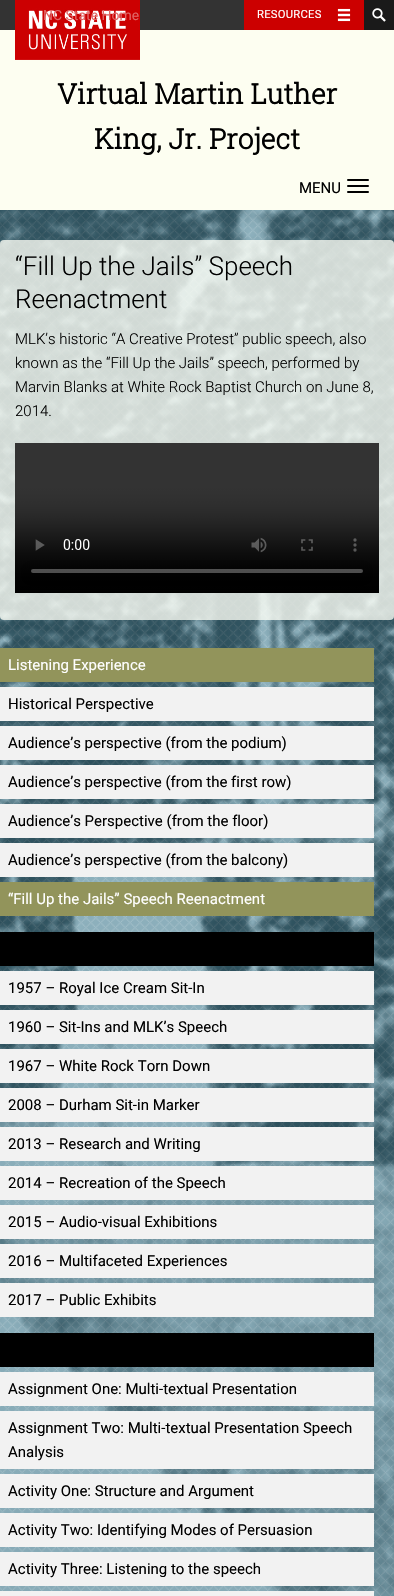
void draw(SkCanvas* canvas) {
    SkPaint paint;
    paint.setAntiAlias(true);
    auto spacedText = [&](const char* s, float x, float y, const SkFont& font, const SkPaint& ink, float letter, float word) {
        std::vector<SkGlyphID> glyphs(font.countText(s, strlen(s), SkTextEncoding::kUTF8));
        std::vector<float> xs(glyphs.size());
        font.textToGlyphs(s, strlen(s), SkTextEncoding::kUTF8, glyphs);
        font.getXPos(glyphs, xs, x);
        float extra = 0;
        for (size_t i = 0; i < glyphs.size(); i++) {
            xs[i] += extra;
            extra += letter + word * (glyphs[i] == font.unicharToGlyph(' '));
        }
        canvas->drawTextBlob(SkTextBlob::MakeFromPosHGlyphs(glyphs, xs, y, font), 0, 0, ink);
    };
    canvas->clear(0xFFFDFEF1);
    paint.setColor(0xFF333333);
    canvas->drawRect(SkRect::MakeXYWH(0, 0, 244, 30), paint);
    canvas->drawImageRect(SkImages::DeferredFromEncodedData(SkData::MakeFromFileName("img1.png")), SkRect::MakeXYWH(15, 0, 125, 60), SkSamplingOptions());
    SkFont font1(fontMgr->matchFamilyStyle("Roboto", SkFontStyle::Normal()), 14);
    font1.setSubpixel(true);
    paint.setColor(0xFFE06666);
    canvas->drawString("NC State Home", 43, 20, font1, paint);
    paint.setColor(0xFFCC0000);
    canvas->drawRect(SkRect::MakeXYWH(244, 0, 120, 30), paint);
    canvas->drawImageRect(SkImages::DeferredFromEncodedData(SkData::MakeFromFileName("img2.png")), SkRect::MakeXYWH(337, 8, 14, 14), SkSamplingOptions());
    SkFont font2(fontMgr->matchFamilyStyle("Roboto", SkFontStyle::Normal()), 11.25f);
    font2.setSubpixel(true);
    paint.setColor(0xFFFFFFFF);
    spacedText("RESOURCES", 257, 18, font2, paint, 0.25f, 0);
    paint.setColor(0xFF1A1A1A);
    canvas->drawRect(SkRect::MakeXYWH(364, 0, 30, 30), paint);
    canvas->drawImageRect(SkImages::DeferredFromEncodedData(SkData::MakeFromFileName("img3.png")), SkRect::MakeXYWH(372, 8, 14, 14), SkSamplingOptions());
    SkFont font3(fontMgr->matchFamilyStyle("Roboto Slab", SkFontStyle::Bold()), 28);
    font3.setSubpixel(true);
    paint.setColor(0xFF000000);
    canvas->drawString("Virtual Martin Luther", 57, 104, font3, paint);
    canvas->drawString("King, Jr. Project", 94, 149, font3, paint);
    canvas->drawRoundRect(SkRect::MakeXYWH(347, 179, 22, 2), 1, 1, paint);
    SkFont font4(fontMgr->matchFamilyStyle("Roboto", SkFontStyle::Normal()), 15);
    font4.setSubpixel(true);
    canvas->drawString("MENU", 299, 193, font4, paint);
    canvas->drawRoundRect(SkRect::MakeXYWH(347, 185, 22, 2), 1, 1, paint);
    canvas->drawRoundRect(SkRect::MakeXYWH(347, 191, 22, 2), 1, 1, paint);
    canvas->drawImageRect(SkImages::DeferredFromEncodedData(SkData::MakeFromFileName("img4.png")), SkRect::MakeXYWH(0, 210, 394, 1386), SkSamplingOptions());
    paint.setColor(0xC7FEFFF6);
    canvas->drawRoundRect(SkRect::MakeXYWH(0, 240, 394, 380), 4, 4, paint);
    SkFont font5(fontMgr->matchFamilyStyle("Roboto", SkFontStyle(300, SkFontStyle::kNormal_Width, SkFontStyle::kUpright_Slant)), 26);
    font5.setSubpixel(true);
    paint.setColor(0xFF000000);
    canvas->drawString("“Fill Up the Jails” Speech", 15, 275, font5, paint);
    canvas->drawString("Reenactment", 15, 308, font5, paint);
    SkFont font6(fontMgr->matchFamilyStyle("Roboto", SkFontStyle(300, SkFontStyle::kNormal_Width, SkFontStyle::kUpright_Slant)), 15);
    font6.setSubpixel(true);
    canvas->drawString("MLK’s historic “A Creative Protest” public speech, also", 15, 344, font6, paint);
    canvas->drawString("known as the “Fill Up the Jails” speech, performed by", 15, 368, font6, paint);
    canvas->drawString("Marvin Blanks at White Rock Baptist Church on June 8,", 15, 392, font6, paint);
    canvas->drawString("2014.", 15, 416, font6, paint);
    canvas->drawImageRect(SkImages::DeferredFromEncodedData(SkData::MakeFromFileName("img5.png")), SkRect::MakeXYWH(15, 443, 364, 150), SkSamplingOptions());
    paint.setColor(0xFF92945B);
    canvas->drawRect(SkRect::MakeXYWH(0, 648, 374, 34), paint);
    paint.setColor(0xFFFFFFFF);
    canvas->drawString("Listening Experience", 8, 670, font4, paint);
    paint.setColor(0xFFF2F2F2);
    canvas->drawRect(SkRect::MakeXYWH(0, 687, 374, 34), paint);
    paint.setColor(0xFF000000);
    canvas->drawString("Historical Perspective", 8, 709, font4, paint);
    paint.setColor(0xFFF2F2F2);
    canvas->drawRect(SkRect::MakeXYWH(0, 726, 374, 34), paint);
    paint.setColor(0xFF000000);
    canvas->drawString("Audience’s perspective (from the podium)", 8, 748, font4, paint);
    paint.setColor(0xFFF2F2F2);
    canvas->drawRect(SkRect::MakeXYWH(0, 765, 374, 34), paint);
    paint.setColor(0xFF000000);
    canvas->drawString("Audience’s perspective (from the first row)", 8, 787, font4, paint);
    paint.setColor(0xFFF2F2F2);
    canvas->drawRect(SkRect::MakeXYWH(0, 804, 374, 34), paint);
    paint.setColor(0xFF000000);
    canvas->drawString("Audience’s Perspective (from the floor)", 8, 826, font4, paint);
    paint.setColor(0xFFF2F2F2);
    canvas->drawRect(SkRect::MakeXYWH(0, 843, 374, 34), paint);
    paint.setColor(0xFF000000);
    canvas->drawString("Audience’s perspective (from the balcony)", 8, 865, font4, paint);
    paint.setColor(0xFF92945B);
    canvas->drawRect(SkRect::MakeXYWH(0, 882, 374, 34), paint);
    paint.setColor(0xFFFFFFFF);
    canvas->drawString("“Fill Up the Jails” Speech Reenactment", 8, 904, font4, paint);
    paint.setColor(0xFF000000);
    canvas->drawRect(SkRect::MakeXYWH(0, 932, 374, 34), paint);
    paint.setColor(0xFFF2F2F2);
    canvas->drawRect(SkRect::MakeXYWH(0, 971, 374, 34), paint);
    paint.setColor(0xFF000000);
    canvas->drawString("1957 – Royal Ice Cream Sit-In", 8, 993, font4, paint);
    paint.setColor(0xFFF2F2F2);
    canvas->drawRect(SkRect::MakeXYWH(0, 1010, 374, 34), paint);
    paint.setColor(0xFF000000);
    canvas->drawString("1960 – Sit-Ins and MLK’s Speech", 8, 1032, font4, paint);
    paint.setColor(0xFFF2F2F2);
    canvas->drawRect(SkRect::MakeXYWH(0, 1049, 374, 34), paint);
    paint.setColor(0xFF000000);
    canvas->drawString("1967 – White Rock Torn Down", 8, 1071, font4, paint);
    paint.setColor(0xFFF2F2F2);
    canvas->drawRect(SkRect::MakeXYWH(0, 1088, 374, 34), paint);
    paint.setColor(0xFF000000);
    canvas->drawString("2008 – Durham Sit-in Marker", 8, 1110, font4, paint);
    paint.setColor(0xFFF2F2F2);
    canvas->drawRect(SkRect::MakeXYWH(0, 1127, 374, 34), paint);
    paint.setColor(0xFF000000);
    canvas->drawString("2013 – Research and Writing", 8, 1149, font4, paint);
    paint.setColor(0xFFF2F2F2);
    canvas->drawRect(SkRect::MakeXYWH(0, 1166, 374, 34), paint);
    paint.setColor(0xFF000000);
    canvas->drawString("2014 – Recreation of the Speech", 8, 1188, font4, paint);
    paint.setColor(0xFFF2F2F2);
    canvas->drawRect(SkRect::MakeXYWH(0, 1205, 374, 34), paint);
    paint.setColor(0xFF000000);
    canvas->drawString("2015 – Audio-visual Exhibitions", 8, 1227, font4, paint);
    paint.setColor(0xFFF2F2F2);
    canvas->drawRect(SkRect::MakeXYWH(0, 1244, 374, 34), paint);
    paint.setColor(0xFF000000);
    canvas->drawString("2016 – Multifaceted Experiences", 8, 1266, font4, paint);
    paint.setColor(0xFFF2F2F2);
    canvas->drawRect(SkRect::MakeXYWH(0, 1283, 374, 34), paint);
    paint.setColor(0xFF000000);
    canvas->drawString("2017 – Public Exhibits", 8, 1305, font4, paint);
    canvas->drawRect(SkRect::MakeXYWH(0, 1333, 374, 34), paint);
    paint.setColor(0xFFF2F2F2);
    canvas->drawRect(SkRect::MakeXYWH(0, 1372, 374, 34), paint);
    paint.setColor(0xFF000000);
    canvas->drawString("Assignment One: Multi-textual Presentation", 8, 1394, font4, paint);
    paint.setColor(0xFFF2F2F2);
    canvas->drawRect(SkRect::MakeXYWH(0, 1411, 374, 58), paint);
    paint.setColor(0xFF000000);
    canvas->drawString("Assignment Two: Multi-textual Presentation Speech", 8, 1433, font4, paint);
    canvas->drawString("Analysis", 8, 1457, font4, paint);
    paint.setColor(0xFFF2F2F2);
    canvas->drawRect(SkRect::MakeXYWH(0, 1474, 374, 34), paint);
    paint.setColor(0xFF000000);
    canvas->drawString("Activity One: Structure and Argument", 8, 1496, font4, paint);
    paint.setColor(0xFFF2F2F2);
    canvas->drawRect(SkRect::MakeXYWH(0, 1513, 374, 34), paint);
    paint.setColor(0xFF000000);
    canvas->drawString("Activity Two: Identifying Modes of Persuasion", 8, 1535, font4, paint);
    paint.setColor(0xFFF2F2F2);
    canvas->drawRect(SkRect::MakeXYWH(0, 1552, 374, 34), paint);
    paint.setColor(0xFF000000);
    canvas->drawString("Activity Three: Listening to the speech", 8, 1574, font4, paint);
    paint.setColor(0xFFF2F2F2);
    canvas->drawRect(SkRect::MakeXYWH(0, 1591, 374, 5), paint);
}
